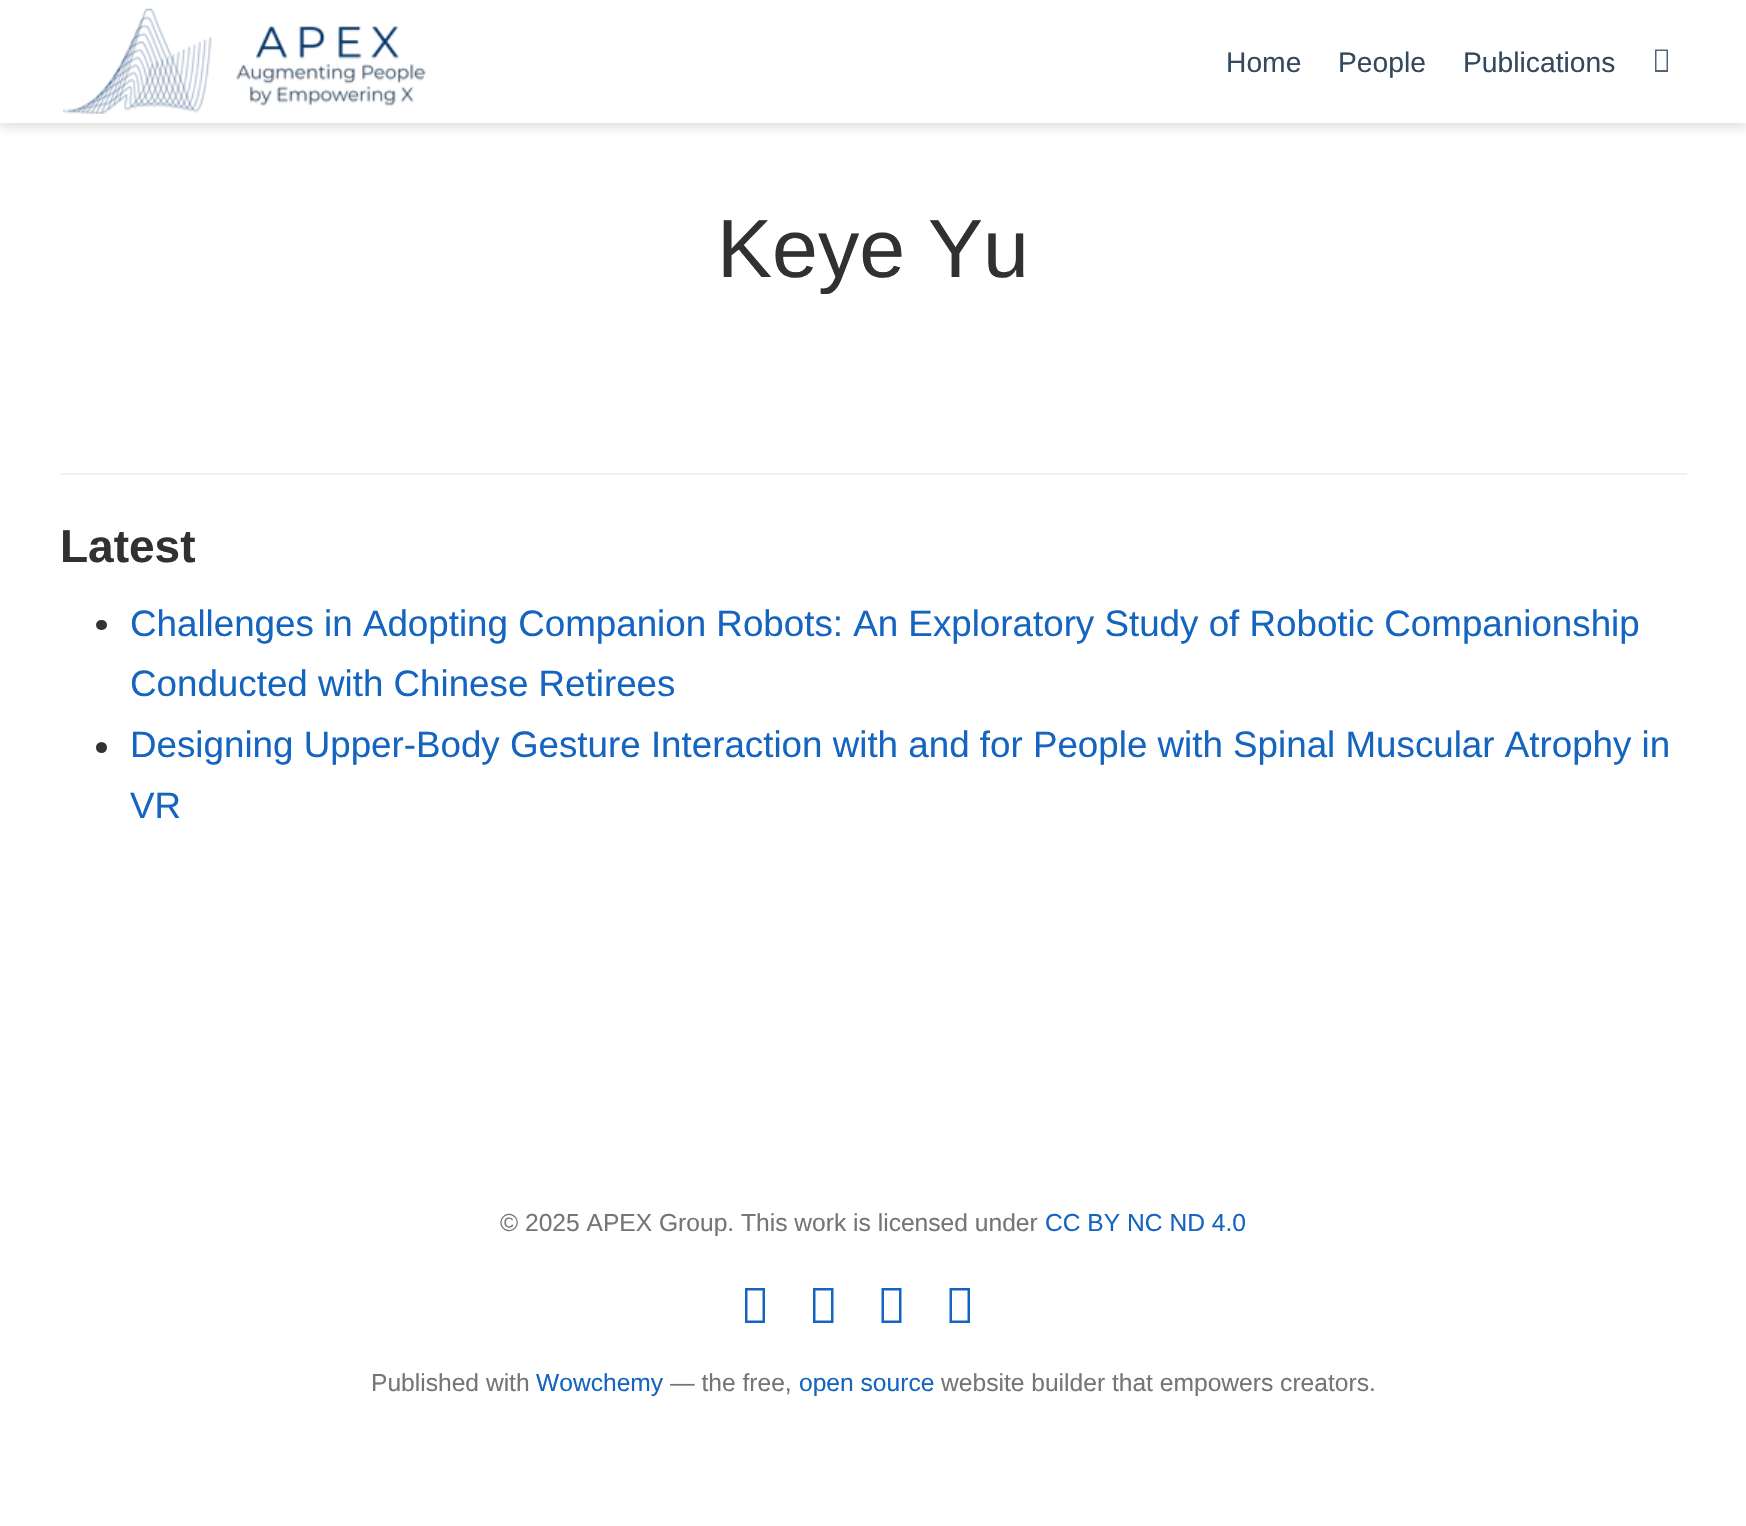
void draw(SkCanvas* canvas) {
    SkPaint paint;
    paint.setAntiAlias(true);
    canvas->clear(0xFFFFFFFF);
    paint.setColor(0x1C000000);
    paint.setMaskFilter(SkMaskFilter::MakeBlur(kNormal_SkBlurStyle, 4.5f));
    canvas->drawRect(SkRect::MakeXYWH(0, 5, 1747, 123), paint);
    paint.setMaskFilter(nullptr);
    paint.setColor(0xFFFFFFFF);
    canvas->drawRect(SkRect::MakeXYWH(0, 0, 1746, 123), paint);
    canvas->drawImageRect(SkImages::DeferredFromEncodedData(SkData::MakeFromFileName("img1.png")), SkRect::MakeXYWH(63, 8, 363, 106), SkSamplingOptions());
    SkFont font1(fontMgr->matchFamilyStyle("Liberation Sans", SkFontStyle::Normal()), 28.25f);
    font1.setSubpixel(true);
    paint.setColor(0xFF34495E);
    canvas->drawString("Home", 1226, 72, font1, paint);
    canvas->drawString("People", 1338, 72, font1, paint);
    canvas->drawString("Publications", 1463, 72, font1, paint);
    paint.setColor(0xFF526476);
    canvas->drawPath(SkPathBuilder().moveTo(1655, 72).lineTo(1655, 49.5f).lineTo(1668, 49.5f).lineTo(1668, 72).close().moveTo(1656.5f, 70).lineTo(1666.5f, 70).lineTo(1666.5f, 51).lineTo(1656.5f, 51).close().detach(), paint);
    SkFont font2(fontMgr->matchFamilyStyle("Liberation Sans", SkFontStyle::Normal()), 82.5f);
    font2.setSubpixel(true);
    paint.setColor(0xFF313131);
    canvas->drawString("Keye Yu", 717, 277, font2, paint);
    paint.setColor(0xFFF2F2F2);
    canvas->drawRect(SkRect::MakeXYWH(60, 473, 1627, 2), paint);
    SkFont font3(fontMgr->matchFamilyStyle("Liberation Sans", SkFontStyle::Bold()), 46);
    font3.setSubpixel(true);
    paint.setColor(0xFF313131);
    canvas->drawString("Latest", 60, 562, font3, paint);
    paint.setColor(0xFF333333);
    canvas->drawRoundRect(SkRect::MakeXYWH(96, 620, 11, 10), 5, 5, paint);
    SkFont font4(fontMgr->matchFamilyStyle("Liberation Sans", SkFontStyle::Normal()), 36.75f);
    font4.setSubpixel(true);
    paint.setColor(0xFF1565C0);
    canvas->drawString("Challenges in Adopting Companion Robots: An Exploratory Study of Robotic Companionship", 130, 636, font4, paint);
    canvas->drawString("Conducted with Chinese Retirees", 130, 696, font4, paint);
    paint.setColor(0xFF333333);
    canvas->drawCircle(101.5f, 747.5f, 5.5f, paint);
    paint.setColor(0xFF1565C0);
    canvas->drawString("Designing Upper-Body Gesture Interaction with and for People with Spinal Muscular Atrophy in", 130, 757, font4, paint);
    canvas->drawString("VR", 130, 818, font4, paint);
    SkFont font5(fontMgr->matchFamilyStyle("Liberation Sans", SkFontStyle::Normal()), 24.6f);
    font5.setSubpixel(true);
    paint.setColor(0xFF757575);
    canvas->drawString("© 2025 APEX Group. This work is licensed under", 500, 1231, font5, paint);
    paint.setColor(0xFF1565C0);
    canvas->drawString("CC BY NC ND 4.0", 1045, 1231, font5, paint);
    canvas->drawPath(SkPathBuilder().moveTo(745, 1323).lineTo(745, 1288).lineTo(765, 1288).lineTo(765, 1323).close().moveTo(747.5f, 1320.5f).lineTo(762.5f, 1320.5f).lineTo(762.5f, 1290.5f).lineTo(747.5f, 1290.5f).close().detach(), paint);
    canvas->drawPath(SkPathBuilder().moveTo(813, 1323).lineTo(813, 1288).lineTo(833.5f, 1288).lineTo(833.5f, 1323).close().moveTo(815.5f, 1320.5f).lineTo(831, 1320.5f).lineTo(831, 1290.5f).lineTo(815.5f, 1290.5f).close().detach(), paint);
    canvas->drawPath(SkPathBuilder().moveTo(881.5f, 1323).lineTo(881.5f, 1288).lineTo(901.5f, 1288).lineTo(901.5f, 1323).close().moveTo(884, 1320.5f).lineTo(899, 1320.5f).lineTo(899, 1290.5f).lineTo(884, 1290.5f).close().detach(), paint);
    canvas->drawPath(SkPathBuilder().moveTo(949.5f, 1323).lineTo(949.5f, 1288).lineTo(970, 1288).lineTo(970, 1323).close().moveTo(952, 1320.5f).lineTo(967.5f, 1320.5f).lineTo(967.5f, 1290.5f).lineTo(952, 1290.5f).close().detach(), paint);
    paint.setColor(0xFF757575);
    canvas->drawString("Published with", 371, 1391, font5, paint);
    paint.setColor(0xFF1565C0);
    canvas->drawString("Wowchemy", 536, 1391, font5, paint);
    paint.setColor(0xFF757575);
    canvas->drawString("— the free,", 670, 1391, font5, paint);
    paint.setColor(0xFF1565C0);
    canvas->drawString("open source", 799, 1391, font5, paint);
    paint.setColor(0xFF757575);
    canvas->drawString("website builder that empowers creators.", 941, 1391, font5, paint);
}
